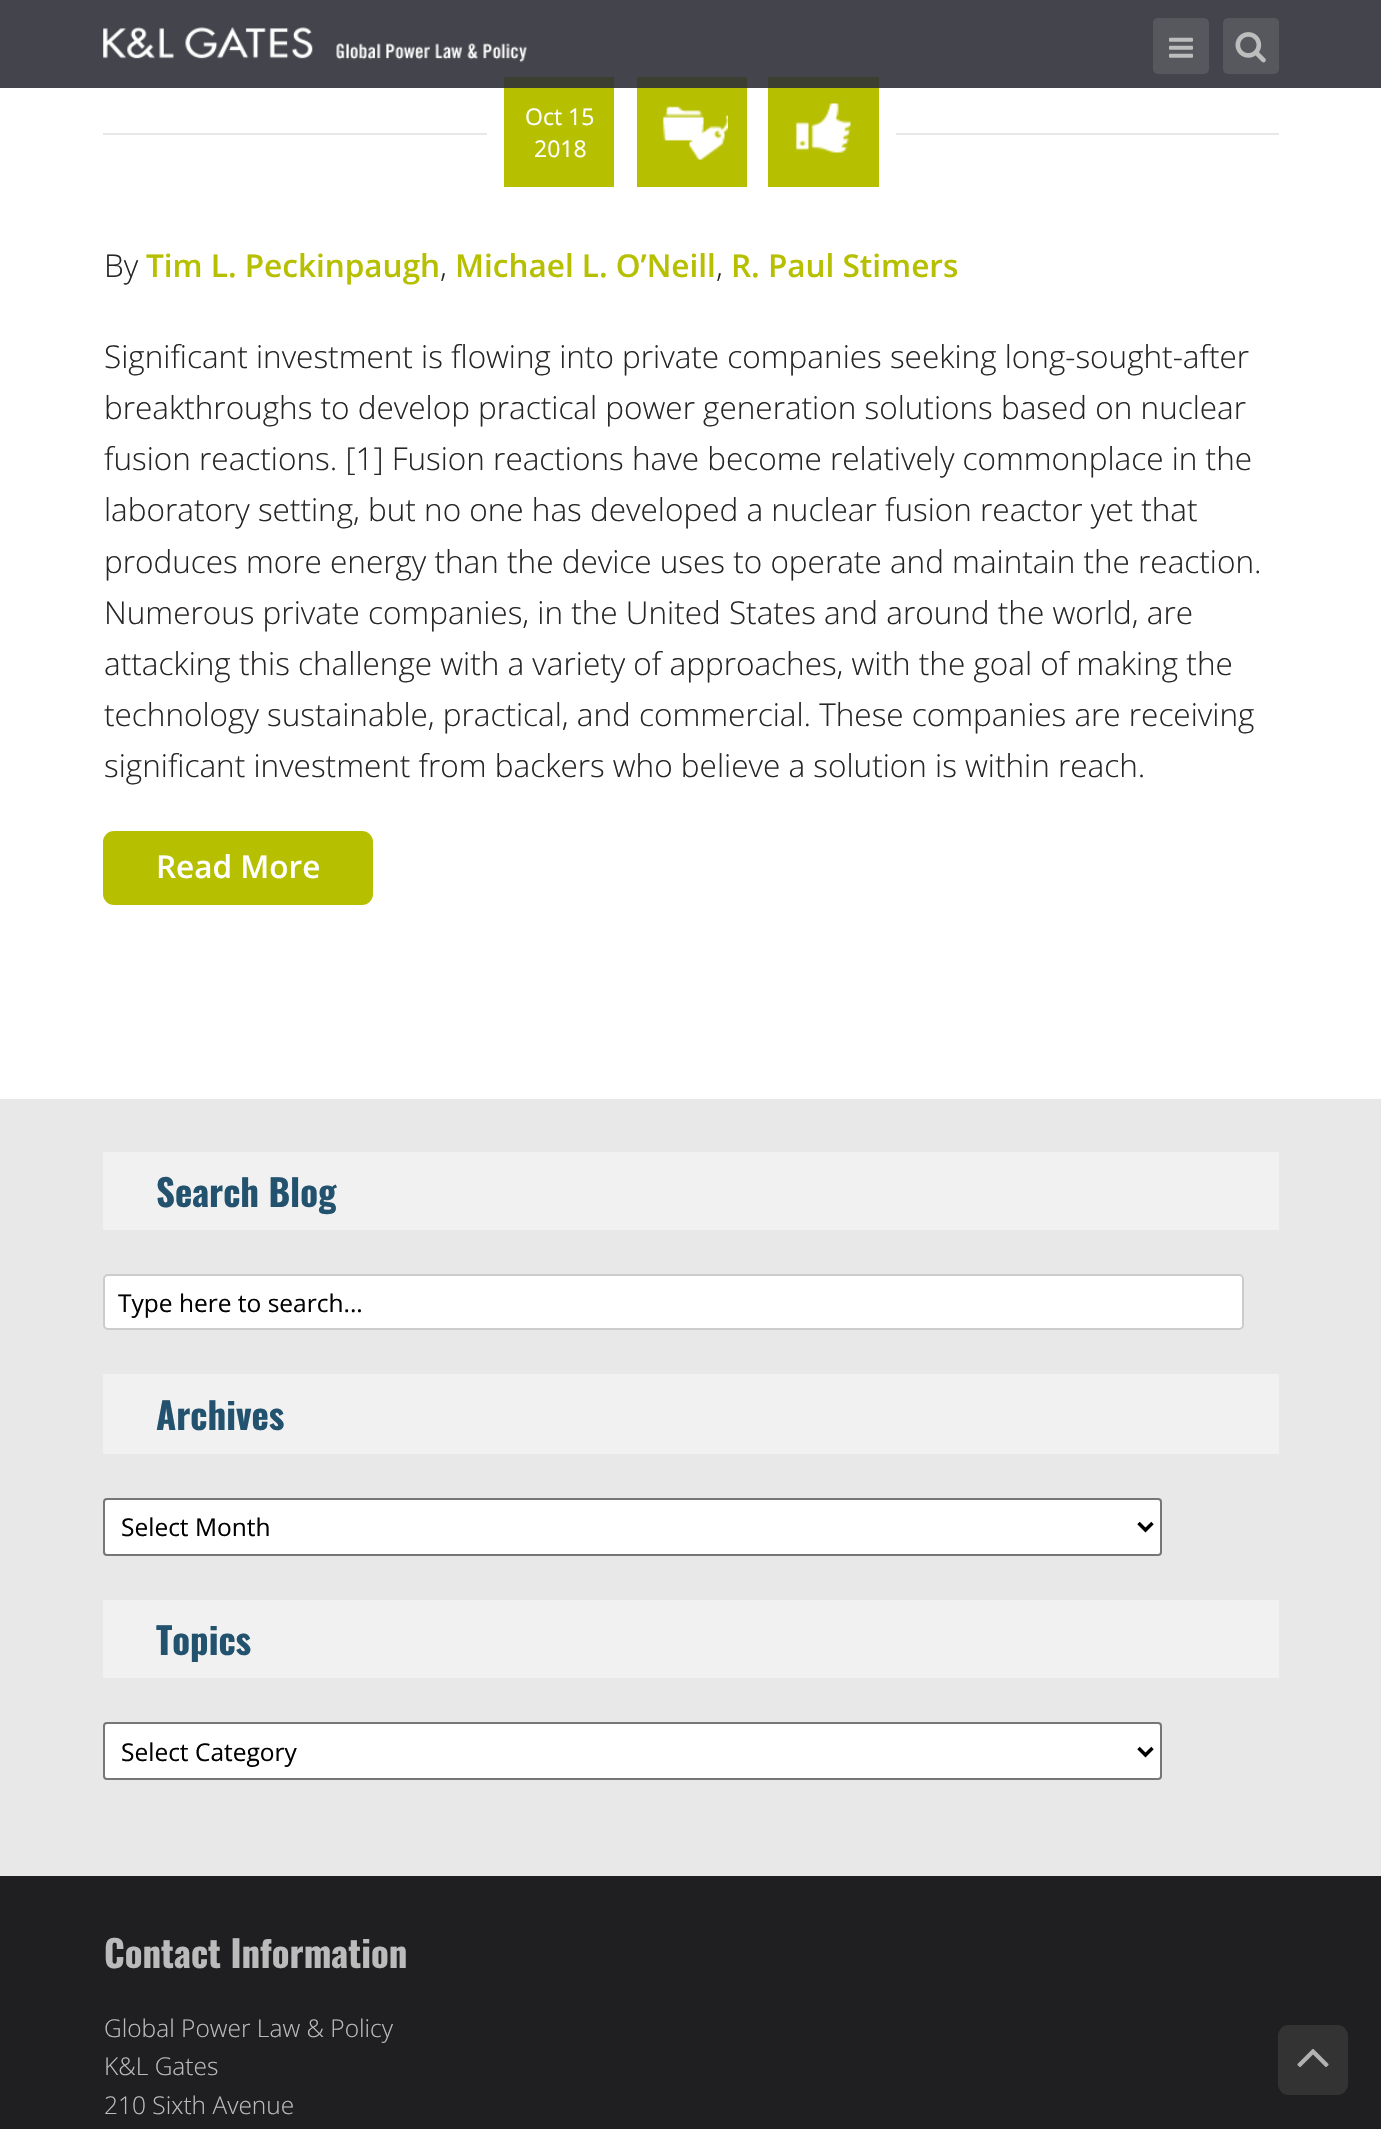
void draw(SkCanvas* canvas) {
    SkPaint paint;
    paint.setAntiAlias(true);
    canvas->clear(0xFFFFFFFF);
    paint.setColor(0xFF44454C);
    canvas->drawRect(SkRect::MakeXYWH(0, 0, 1381, 88), paint);
    canvas->drawImageRect(SkImages::DeferredFromEncodedData(SkData::MakeFromFileName("img1.png")), SkRect::MakeXYWH(103, 27, 424, 36), SkSamplingOptions());
    paint.setColor(0xFF57575E);
    canvas->drawRoundRect(SkRect::MakeXYWH(1153, 18, 56, 56), 5, 5, paint);
    canvas->drawImageRect(SkImages::DeferredFromEncodedData(SkData::MakeFromFileName("img2.png")), SkRect::MakeXYWH(1169, 37, 24, 21), SkSamplingOptions());
    canvas->drawRoundRect(SkRect::MakeXYWH(1223, 18, 56, 56), 5, 5, paint);
    canvas->drawImageRect(SkImages::DeferredFromEncodedData(SkData::MakeFromFileName("img3.png")), SkRect::MakeXYWH(1235, 32, 31, 31), SkSamplingOptions());
    paint.setColor(0xFFE8E8E8);
    canvas->drawRect(SkRect::MakeXYWH(103, 133, 1176, 2), paint);
    paint.setColor(0xFFFFFFFF);
    canvas->drawRect(SkRect::MakeXYWH(487, 133, 409, 2), paint);
    paint.setColor(0xFFB6BF00);
    canvas->drawRect(SkRect::MakeXYWH(504, 88, 110, 99), paint);
    paint.setColor(0xFF3D3E32);
    canvas->drawRect(SkRect::MakeXYWH(504, 77, 110, 11), paint);
    SkFont font1(fontMgr->matchFamilyStyle("Open Sans", SkFontStyle::Normal()), 23);
    font1.setSubpixel(true);
    paint.setColor(0xFFFFFFFF);
    canvas->drawString("Oct 15", 525, 125, font1, paint);
    canvas->drawString("2018", 534, 157, font1, paint);
    paint.setColor(0xFFB6BF00);
    canvas->drawRect(SkRect::MakeXYWH(637, 88, 110, 99), paint);
    paint.setColor(0xFF3D3E32);
    canvas->drawRect(SkRect::MakeXYWH(637, 77, 110, 11), paint);
    canvas->drawImageRect(SkImages::DeferredFromEncodedData(SkData::MakeFromFileName("img4.png")), SkRect::MakeXYWH(662, 106, 66, 54), SkSamplingOptions());
    paint.setColor(0xFFB6BF00);
    canvas->drawRect(SkRect::MakeXYWH(768, 88, 111, 99), paint);
    paint.setColor(0xFF3D3E32);
    canvas->drawRect(SkRect::MakeXYWH(768, 77, 111, 11), paint);
    canvas->drawImageRect(SkImages::DeferredFromEncodedData(SkData::MakeFromFileName("img5.png")), SkRect::MakeXYWH(795, 103, 56, 50), SkSamplingOptions());
    SkFont font2(fontMgr->matchFamilyStyle("Open Sans", SkFontStyle(300, SkFontStyle::kNormal_Width, SkFontStyle::kUpright_Slant)), 31.5f);
    font2.setSubpixel(true);
    paint.setColor(0xFF282525);
    canvas->drawString("By", 104, 277, font2, paint);
    SkFont font3(fontMgr->matchFamilyStyle("Open Sans", SkFontStyle(600, SkFontStyle::kNormal_Width, SkFontStyle::kUpright_Slant)), 31.5f);
    font3.setSubpixel(true);
    paint.setColor(0xFFB6BF00);
    canvas->drawString("Tim L. Peckinpaugh", 146, 277, font3, paint);
    paint.setColor(0xFF282525);
    canvas->drawString(",", 440, 277, font2, paint);
    paint.setColor(0xFFB6BF00);
    canvas->drawString("Michael L. O’Neill", 455, 277, font3, paint);
    paint.setColor(0xFF282525);
    canvas->drawString(",", 716, 277, font2, paint);
    paint.setColor(0xFFB6BF00);
    canvas->drawString("R. Paul Stimers", 731, 277, font3, paint);
    paint.setColor(0xFF282525);
    canvas->drawString("Significant investment is flowing into private companies seeking long-sought-after", 104, 368, font2, paint);
    canvas->drawString("breakthroughs to develop practical power generation solutions based on nuclear", 104, 419, font2, paint);
    canvas->drawString("fusion reactions. [1] Fusion reactions have become relatively commonplace in the", 104, 470, font2, paint);
    canvas->drawString("laboratory setting, but no one has developed a nuclear fusion reactor yet that", 104, 521, font2, paint);
    canvas->drawString("produces more energy than the device uses to operate and maintain the reaction.", 104, 573, font2, paint);
    canvas->drawString("Numerous private companies, in the United States and around the world, are", 104, 624, font2, paint);
    canvas->drawString("attacking this challenge with a variety of approaches, with the goal of making the", 104, 675, font2, paint);
    canvas->drawString("technology sustainable, practical, and commercial. These companies are receiving", 104, 726, font2, paint);
    canvas->drawString("significant investment from backers who believe a solution is within reach.", 104, 777, font2, paint);
    paint.setColor(0xFFB6BF00);
    canvas->drawRoundRect(SkRect::MakeXYWH(103, 831, 270, 74), 11, 11, paint);
    paint.setColor(0xFFFFFFFF);
    canvas->drawString("Read More", 156, 878, font3, paint);
    paint.setColor(0xFFE8E8E8);
    canvas->drawRect(SkRect::MakeXYWH(0, 1099, 103, 777), paint);
    canvas->drawRect(SkRect::MakeXYWH(103, 1099, 1278, 777), paint);
    paint.setColor(0xFFF1F1F1);
    canvas->drawRect(SkRect::MakeXYWH(103, 1152, 1176, 78), paint);
    SkFont font4(fontMgr->matchFamilyStyle("Oswald", SkFontStyle::Bold()), 36.75f);
    font4.setSubpixel(true);
    paint.setColor(0xFF23526E);
    canvas->drawString("Search Blog", 156, 1207, font4, paint);
    paint.setColor(0xFFFFFFFF);
    canvas->drawRoundRect(SkRect::MakeXYWH(104, 1275, 1139, 54), 4, 4, paint);
    paint.setStyle(SkPaint::kStroke_Style);
    paint.setStrokeWidth(2);
    paint.setColor(0xFFCCCCCC);
    canvas->drawRoundRect(SkRect::MakeXYWH(104, 1275, 1139, 54), 4, 4, paint);
    SkFont font5(fontMgr->matchFamilyStyle("Open Sans", SkFontStyle::Normal()), 24.5f);
    font5.setSubpixel(true);
    paint.setStyle(SkPaint::kFill_Style);
    paint.setColor(0xFF010101);
    canvas->drawString("Type here to search...", 118, 1312, font5, paint);
    paint.setColor(0xFFF1F1F1);
    canvas->drawRect(SkRect::MakeXYWH(103, 1374, 1176, 80), paint);
    paint.setColor(0xFF23526E);
    canvas->drawString("Archives", 156, 1430, font4, paint);
    paint.setColor(0xFFFFFFFF);
    canvas->drawRoundRect(SkRect::MakeXYWH(104, 1499, 1057, 56), 3, 3, paint);
    paint.setStyle(SkPaint::kStroke_Style);
    paint.setColor(0xFF767676);
    canvas->drawRoundRect(SkRect::MakeXYWH(104, 1499, 1057, 56), 3, 3, paint);
    paint.setStrokeWidth(3.5f);
    paint.setColor(0xFF000000);
    canvas->drawPath(SkPathBuilder().moveTo(1138.5f, 1523).lineTo(1145.5f, 1530).lineTo(1152.5f, 1523).detach(), paint);
    paint.setStyle(SkPaint::kFill_Style);
    paint.setColor(0xFF010101);
    canvas->drawString("Select Month", 121, 1536, font5, paint);
    paint.setColor(0xFFF1F1F1);
    canvas->drawRect(SkRect::MakeXYWH(103, 1600, 1176, 78), paint);
    paint.setColor(0xFF23526E);
    canvas->drawString("Topics", 156, 1655, font4, paint);
    paint.setColor(0xFFFFFFFF);
    canvas->drawRoundRect(SkRect::MakeXYWH(104, 1723, 1057, 56), 3, 3, paint);
    paint.setStyle(SkPaint::kStroke_Style);
    paint.setStrokeWidth(2);
    paint.setColor(0xFF767676);
    canvas->drawRoundRect(SkRect::MakeXYWH(104, 1723, 1057, 56), 3, 3, paint);
    paint.setStrokeWidth(3.5f);
    paint.setColor(0xFF000000);
    canvas->drawPath(SkPathBuilder().moveTo(1138.5f, 1748).lineTo(1145.5f, 1755).lineTo(1152.5f, 1748).detach(), paint);
    paint.setStyle(SkPaint::kFill_Style);
    paint.setColor(0xFF010101);
    canvas->drawString("Select Category", 121, 1761, font5, paint);
    paint.setColor(0xFF1F1E20);
    canvas->drawRect(SkRect::MakeXYWH(0, 1876, 1381, 253), paint);
    paint.setColor(0xFFBBBBBB);
    canvas->drawString("Contact Information", 104, 1968, font4, paint);
    SkFont font6(fontMgr->matchFamilyStyle("Open Sans", SkFontStyle(300, SkFontStyle::kNormal_Width, SkFontStyle::kUpright_Slant)), 24.5f);
    font6.setSubpixel(true);
    canvas->drawString("Global Power Law & Policy", 104, 2037, font6, paint);
    canvas->drawString("K&L Gates", 104, 2075, font6, paint);
    canvas->drawString("210 Sixth Avenue", 104, 2114, font6, paint);
    paint.setColor(0xFF333333);
    canvas->drawRoundRect(SkRect::MakeXYWH(1278, 2025, 70, 70), 11, 11, paint);
    canvas->drawImageRect(SkImages::DeferredFromEncodedData(SkData::MakeFromFileName("img6.png")), SkRect::MakeXYWH(1297, 2049, 32, 18), SkSamplingOptions());
}
